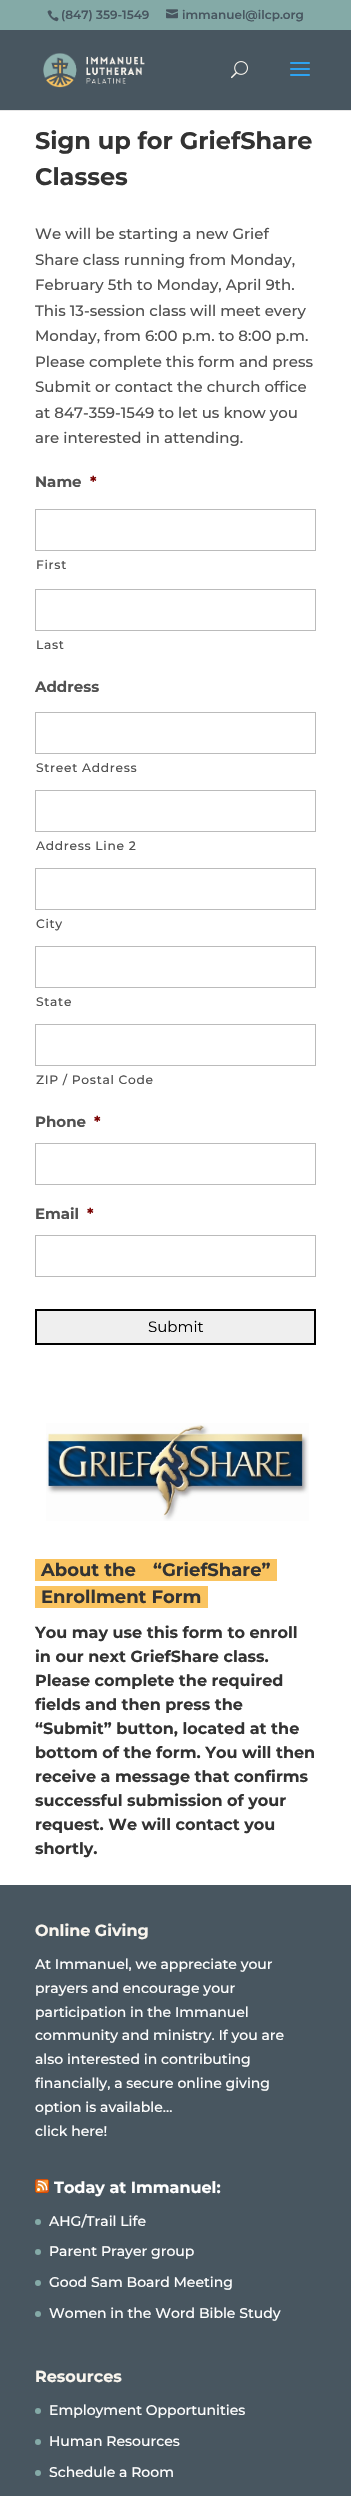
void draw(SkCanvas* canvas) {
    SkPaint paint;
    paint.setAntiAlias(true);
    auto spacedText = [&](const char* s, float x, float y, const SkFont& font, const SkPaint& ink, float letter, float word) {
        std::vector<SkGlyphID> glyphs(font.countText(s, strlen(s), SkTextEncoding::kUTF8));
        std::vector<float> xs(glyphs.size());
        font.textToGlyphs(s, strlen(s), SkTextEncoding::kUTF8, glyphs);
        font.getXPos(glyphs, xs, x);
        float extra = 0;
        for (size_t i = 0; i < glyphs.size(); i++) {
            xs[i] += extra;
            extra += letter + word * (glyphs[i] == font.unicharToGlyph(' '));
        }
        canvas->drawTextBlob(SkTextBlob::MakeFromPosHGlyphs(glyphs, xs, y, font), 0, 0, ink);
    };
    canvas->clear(0xFFFFFFFF);
    paint.setColor(0xFF84AAA7);
    canvas->drawRect(SkRect::MakeXYWH(0, 0, 351, 30), paint);
    canvas->drawImageRect(SkImages::DeferredFromEncodedData(SkData::MakeFromFileName("img1.png")), SkRect::MakeXYWH(47, 10, 12, 12), SkSamplingOptions());
    SkFont font1(fontMgr->matchFamilyStyle("Montserrat", SkFontStyle(600, SkFontStyle::kNormal_Width, SkFontStyle::kUpright_Slant)), 12);
    font1.setSubpixel(true);
    paint.setColor(0xFF485660);
    canvas->drawString("(847) 359-1549", 61, 19, font1, paint);
    canvas->drawImageRect(SkImages::DeferredFromEncodedData(SkData::MakeFromFileName("img2.png")), SkRect::MakeXYWH(166, 9, 12, 10), SkSamplingOptions());
    canvas->drawString("immanuel@ilcp.org", 182, 19, font1, paint);
    paint.setColor(0xFFE6E6E6);
    canvas->drawRect(SkRect::MakeXYWH(0, 110, 351, 1), paint);
    paint.setColor(0xFF485660);
    canvas->drawRect(SkRect::MakeXYWH(0, 30, 351, 80), paint);
    canvas->drawImageRect(SkImages::DeferredFromEncodedData(SkData::MakeFromFileName("img3.png")), SkRect::MakeXYWH(43, 53, 102, 35), SkSamplingOptions());
    canvas->drawImageRect(SkImages::DeferredFromEncodedData(SkData::MakeFromFileName("img4.png")), SkRect::MakeXYWH(231, 61, 17, 18), SkSamplingOptions());
    canvas->drawImageRect(SkImages::DeferredFromEncodedData(SkData::MakeFromFileName("img5.png")), SkRect::MakeXYWH(290, 62, 20, 14), SkSamplingOptions());
    SkFont font2(fontMgr->matchFamilyStyle("Montserrat", SkFontStyle::Bold()), 24);
    font2.setSubpixel(true);
    paint.setColor(0xFF333333);
    canvas->drawString("Sign up for GriefShare", 35, 149, font2, paint);
    canvas->drawString("Classes", 35, 185, font2, paint);
    SkFont font3(fontMgr->matchFamilyStyle("Montserrat", SkFontStyle(500, SkFontStyle::kNormal_Width, SkFontStyle::kUpright_Slant)), 15);
    font3.setSubpixel(true);
    paint.setColor(0xFF515151);
    canvas->drawString("We will be starting a new Grief", 35, 239, font3, paint);
    canvas->drawString("Share class running from Monday,", 35, 265, font3, paint);
    canvas->drawString("February 5th to Monday, April 9th.", 35, 290, font3, paint);
    canvas->drawString("This 13-session class will meet every", 35, 316, font3, paint);
    canvas->drawString("Monday, from 6:00 p.m. to 8:00 p.m.", 35, 341, font3, paint);
    canvas->drawString("Please complete this form and press", 35, 367, font3, paint);
    canvas->drawString("Submit or contact the church office", 35, 392, font3, paint);
    canvas->drawString("at 847-359-1549 to let us know you", 35, 418, font3, paint);
    canvas->drawString("are interested in attending.", 35, 443, font3, paint);
    SkFont font4(fontMgr->matchFamilyStyle("Montserrat", SkFontStyle::Bold()), 15);
    font4.setSubpixel(true);
    canvas->drawString("Name", 35, 487, font4, paint);
    paint.setColor(0xFF790000);
    canvas->drawString("*", 90, 487, font4, paint);
    paint.setStyle(SkPaint::kStroke_Style);
    paint.setStrokeWidth(1);
    paint.setColor(0xFFBBBBBB);
    canvas->drawRect(SkRect::MakeXYWH(35.5f, 509.5f, 280, 41), paint);
    SkFont font5(fontMgr->matchFamilyStyle("Montserrat", SkFontStyle(500, SkFontStyle::kNormal_Width, SkFontStyle::kUpright_Slant)), 12.25f);
    font5.setSubpixel(true);
    paint.setStyle(SkPaint::kFill_Style);
    paint.setColor(0xFF515151);
    spacedText("First", 36, 569, font5, paint, 0.7f, 0);
    paint.setStyle(SkPaint::kStroke_Style);
    paint.setColor(0xFFBBBBBB);
    canvas->drawRect(SkRect::MakeXYWH(35.5f, 589.5f, 280, 41), paint);
    paint.setStyle(SkPaint::kFill_Style);
    paint.setColor(0xFF515151);
    spacedText("Last", 36, 649, font5, paint, 0.7f, 0);
    canvas->drawString("Address", 35, 692, font4, paint);
    paint.setStyle(SkPaint::kStroke_Style);
    paint.setColor(0xFFBBBBBB);
    canvas->drawRect(SkRect::MakeXYWH(35.5f, 712.5f, 280, 41), paint);
    paint.setStyle(SkPaint::kFill_Style);
    paint.setColor(0xFF515151);
    spacedText("Street Address", 36, 772, font5, paint, 0.7f, 0);
    paint.setStyle(SkPaint::kStroke_Style);
    paint.setColor(0xFFBBBBBB);
    canvas->drawRect(SkRect::MakeXYWH(35.5f, 790.5f, 280, 41), paint);
    paint.setStyle(SkPaint::kFill_Style);
    paint.setColor(0xFF515151);
    spacedText("Address Line 2", 36, 850, font5, paint, 0.7f, 0);
    paint.setStyle(SkPaint::kStroke_Style);
    paint.setColor(0xFFBBBBBB);
    canvas->drawRect(SkRect::MakeXYWH(35.5f, 868.5f, 280, 41), paint);
    paint.setStyle(SkPaint::kFill_Style);
    paint.setColor(0xFF515151);
    spacedText("City", 36, 928, font5, paint, 0.7f, 0);
    paint.setStyle(SkPaint::kStroke_Style);
    paint.setColor(0xFFBBBBBB);
    canvas->drawRect(SkRect::MakeXYWH(35.5f, 946.5f, 280, 41), paint);
    paint.setStyle(SkPaint::kFill_Style);
    paint.setColor(0xFF515151);
    spacedText("State", 36, 1006, font5, paint, 0.7f, 0);
    paint.setStyle(SkPaint::kStroke_Style);
    paint.setColor(0xFFBBBBBB);
    canvas->drawRect(SkRect::MakeXYWH(35.5f, 1024.5f, 280, 41), paint);
    paint.setStyle(SkPaint::kFill_Style);
    paint.setColor(0xFF515151);
    spacedText("ZIP / Postal Code", 36, 1084, font5, paint, 0.7f, 0);
    canvas->drawString("Phone", 35, 1127, font4, paint);
    paint.setColor(0xFF790000);
    canvas->drawString("*", 94, 1127, font4, paint);
    paint.setStyle(SkPaint::kStroke_Style);
    paint.setColor(0xFFBBBBBB);
    canvas->drawRect(SkRect::MakeXYWH(35.5f, 1143.5f, 280, 41), paint);
    paint.setStyle(SkPaint::kFill_Style);
    paint.setColor(0xFF515151);
    canvas->drawString("Email", 35, 1219, font4, paint);
    paint.setColor(0xFF790000);
    canvas->drawString("*", 87, 1219, font4, paint);
    paint.setStyle(SkPaint::kStroke_Style);
    paint.setColor(0xFFBBBBBB);
    canvas->drawRect(SkRect::MakeXYWH(35.5f, 1235.5f, 280, 41), paint);
    paint.setStyle(SkPaint::kFill_Style);
    paint.setColor(0xFFEFEFEF);
    canvas->drawRect(SkRect::MakeXYWH(36, 1310, 279, 34), paint);
    paint.setStyle(SkPaint::kStroke_Style);
    paint.setStrokeWidth(2);
    paint.setColor(0xFF000000);
    canvas->drawRect(SkRect::MakeXYWH(36, 1310, 279, 34), paint);
    SkFont font6(fontMgr->matchFamilyStyle("Montserrat", SkFontStyle::Normal()), 15);
    font6.setSubpixel(true);
    paint.setStyle(SkPaint::kFill_Style);
    canvas->drawString("Submit", 148, 1332, font6, paint);
    canvas->drawImageRect(SkImages::DeferredFromEncodedData(SkData::MakeFromFileName("img6.png")), SkRect::MakeXYWH(46, 1423, 263, 98), SkSamplingOptions());
    paint.setColor(0xFFFAC460);
    canvas->drawRect(SkRect::MakeXYWH(35, 1559, 242, 22), paint);
    SkFont font7(fontMgr->matchFamilyStyle("Montserrat", SkFontStyle::Bold()), 18);
    font7.setSubpixel(true);
    paint.setColor(0xFF333333);
    canvas->drawString("About the", 41, 1576, font7, paint);
    canvas->drawString("“GriefShare”", 153, 1576, font7, paint);
    paint.setColor(0xFFFAC460);
    canvas->drawRect(SkRect::MakeXYWH(35, 1586, 173, 22), paint);
    paint.setColor(0xFF333333);
    canvas->drawString("Enrollment Form", 41, 1603, font7, paint);
    SkFont font8(fontMgr->matchFamilyStyle("Montserrat", SkFontStyle::Bold()), 16);
    font8.setSubpixel(true);
    canvas->drawString("You may use this form to enroll", 35, 1638, font8, paint);
    canvas->drawString("in our next GriefShare class.", 35, 1662, font8, paint);
    canvas->drawString("Please complete the required", 35, 1686, font8, paint);
    canvas->drawString("fields and then press the", 35, 1710, font8, paint);
    canvas->drawString("“Submit” button, located at the", 35, 1734, font8, paint);
    canvas->drawString("bottom of the form. You will then", 35, 1758, font8, paint);
    canvas->drawString("receive a message that confirms", 35, 1782, font8, paint);
    canvas->drawString("successful submission of your", 35, 1806, font8, paint);
    canvas->drawString("request. We will contact you", 35, 1830, font8, paint);
    canvas->drawString("shortly.", 35, 1854, font8, paint);
    paint.setColor(0xFF485660);
    canvas->drawRect(SkRect::MakeXYWH(0, 1885, 351, 611), paint);
    paint.setColor(0xFFF9F5EE);
    canvas->drawString("Online Giving", 35, 1936, font8, paint);
    SkFont font9(fontMgr->matchFamilyStyle("Montserrat", SkFontStyle(500, SkFontStyle::kNormal_Width, SkFontStyle::kUpright_Slant)), 14);
    font9.setSubpixel(true);
    paint.setColor(0xFFFFFFFF);
    canvas->drawString("At Immanuel, we appreciate your", 35, 1969, font9, paint);
    canvas->drawString("prayers and encourage your", 35, 1993, font9, paint);
    canvas->drawString("participation in the Immanuel", 35, 2017, font9, paint);
    canvas->drawString("community and ministry. If you are", 35, 2040, font9, paint);
    canvas->drawString("also interested in contributing", 35, 2064, font9, paint);
    canvas->drawString("financially, a secure online giving", 35, 2088, font9, paint);
    canvas->drawString("option is available…", 35, 2112, font9, paint);
    canvas->drawString("click here!", 35, 2136, font9, paint);
    canvas->drawImageRect(SkImages::DeferredFromEncodedData(SkData::MakeFromFileName("img7.png")), SkRect::MakeXYWH(35, 2179, 14, 14), SkSamplingOptions());
    canvas->drawString("Today at Immanuel:", 54, 2193, font8, paint);
    paint.setColor(0xFF84AAA7);
    canvas->drawCircle(38, 2222, 3, paint);
    paint.setColor(0xFFFFFFFF);
    canvas->drawString("AHG/Trail Life", 49, 2226, font9, paint);
    paint.setColor(0xFF84AAA7);
    canvas->drawCircle(38, 2252, 3, paint);
    paint.setColor(0xFFFFFFFF);
    canvas->drawString("Parent Prayer group", 49, 2256, font9, paint);
    paint.setColor(0xFF84AAA7);
    canvas->drawCircle(38, 2283, 3, paint);
    paint.setColor(0xFFFFFFFF);
    canvas->drawString("Good Sam Board Meeting", 49, 2287, font9, paint);
    paint.setColor(0xFF84AAA7);
    canvas->drawCircle(38, 2314, 3, paint);
    paint.setColor(0xFFFFFFFF);
    canvas->drawString("Women in the Word Bible Study", 49, 2318, font9, paint);
    paint.setColor(0xFFF9F5EE);
    canvas->drawString("Resources", 35, 2382, font8, paint);
    paint.setColor(0xFF84AAA7);
    canvas->drawCircle(38, 2411, 3, paint);
    paint.setColor(0xFFFFFFFF);
    canvas->drawString("Employment Opportunities", 49, 2415, font9, paint);
    paint.setColor(0xFF84AAA7);
    canvas->drawCircle(38, 2442, 3, paint);
    paint.setColor(0xFFFFFFFF);
    canvas->drawString("Human Resources", 49, 2446, font9, paint);
    paint.setColor(0xFF84AAA7);
    canvas->drawCircle(38, 2473, 3, paint);
    paint.setColor(0xFFFFFFFF);
    canvas->drawString("Schedule a Room", 49, 2477, font9, paint);
}
